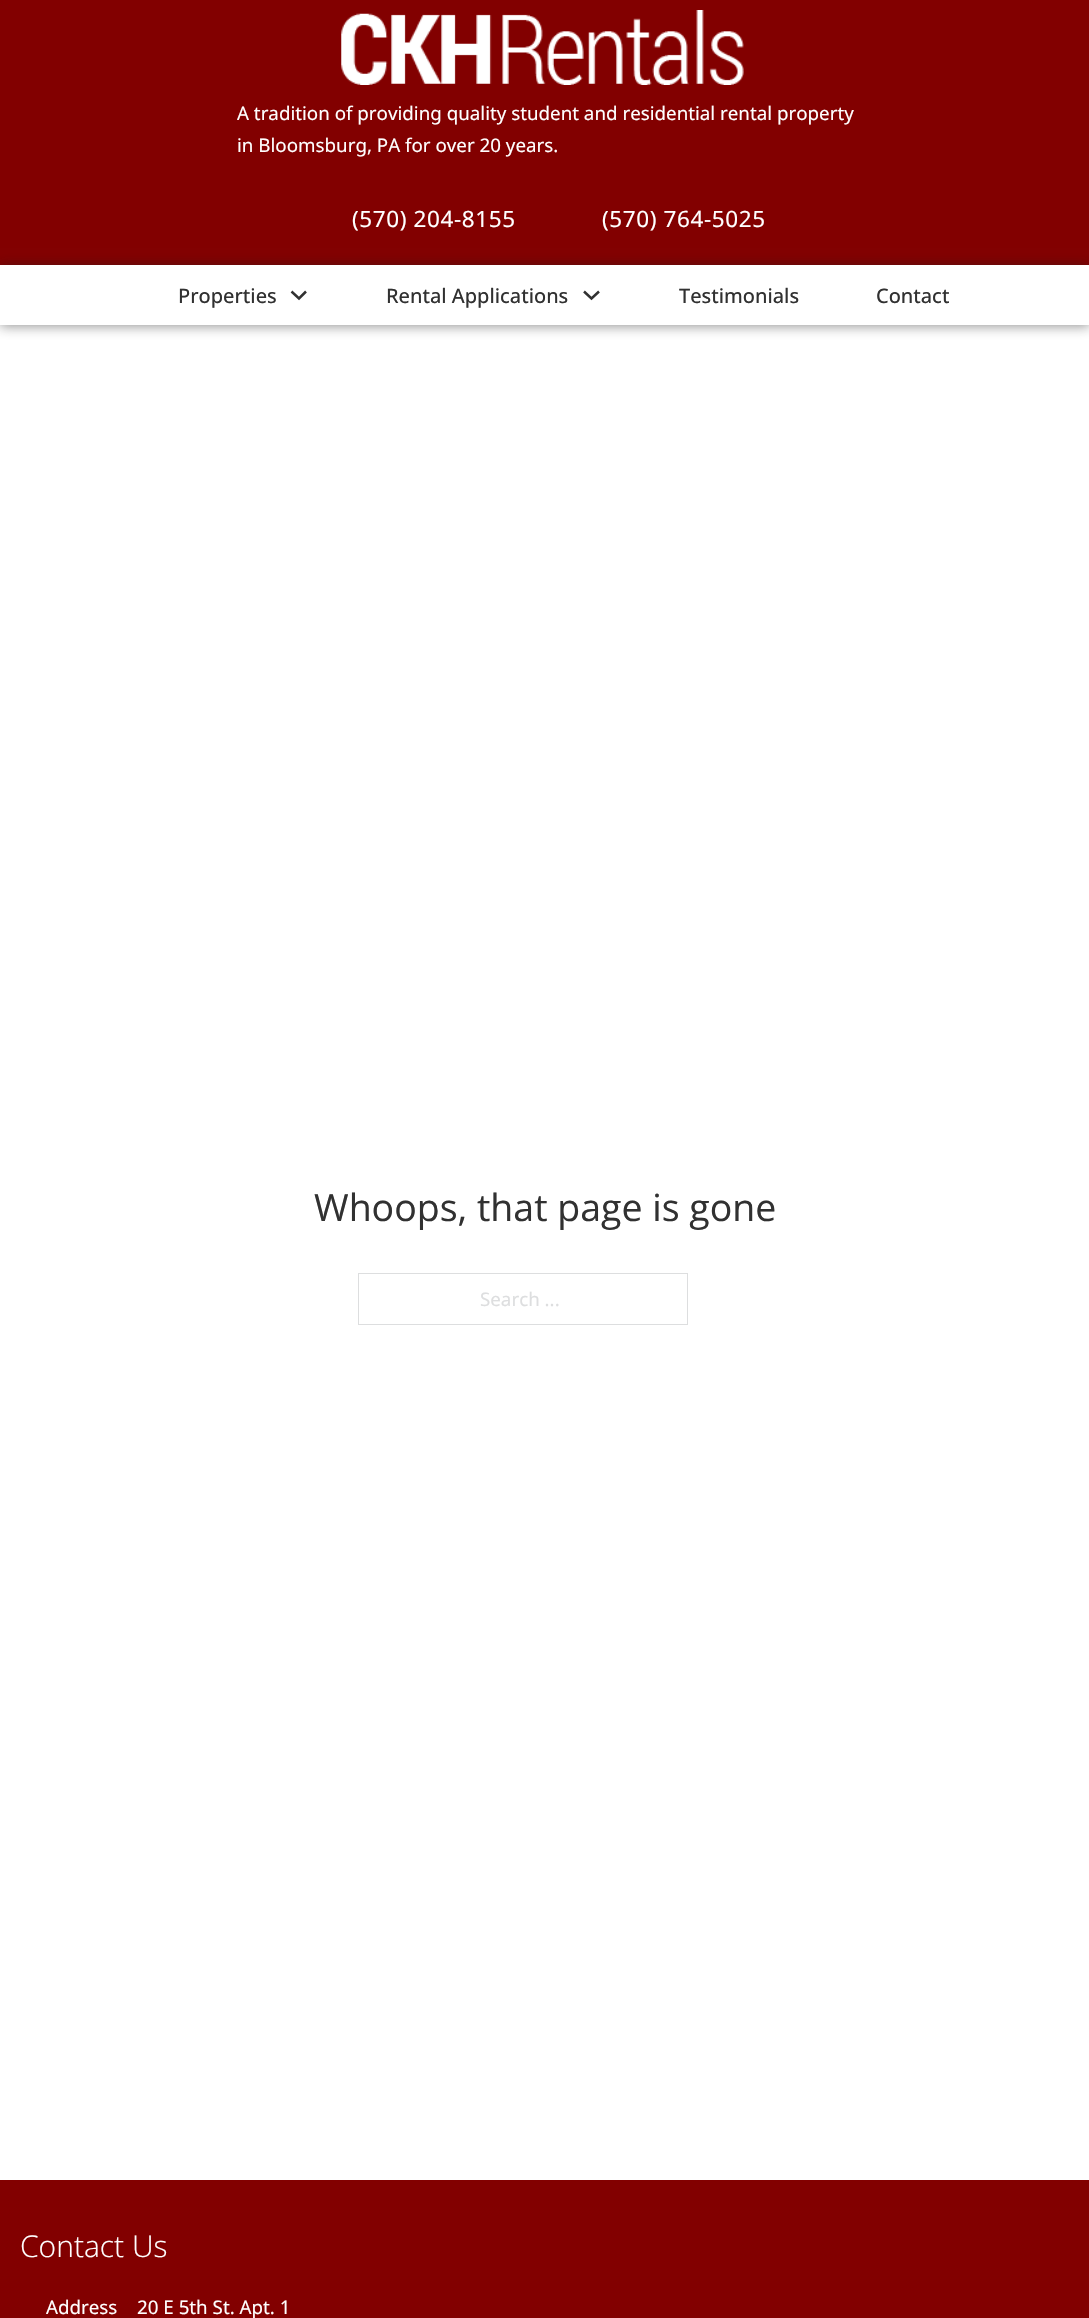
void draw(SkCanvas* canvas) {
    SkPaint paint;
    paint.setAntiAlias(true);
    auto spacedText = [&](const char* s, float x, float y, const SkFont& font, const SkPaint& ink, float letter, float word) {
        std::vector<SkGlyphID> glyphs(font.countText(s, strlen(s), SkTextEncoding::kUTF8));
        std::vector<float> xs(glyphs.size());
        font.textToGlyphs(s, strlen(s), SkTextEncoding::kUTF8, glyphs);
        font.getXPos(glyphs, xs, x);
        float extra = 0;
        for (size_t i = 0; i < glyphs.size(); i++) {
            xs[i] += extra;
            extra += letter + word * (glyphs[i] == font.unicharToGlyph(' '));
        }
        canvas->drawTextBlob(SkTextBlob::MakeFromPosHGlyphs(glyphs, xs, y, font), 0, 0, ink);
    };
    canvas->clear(0xFFFFFFFF);
    paint.setColor(0xFF820000);
    canvas->drawRect(SkRect::MakeXYWH(0, 0, 1089, 265), paint);
    canvas->drawImageRect(SkImages::DeferredFromEncodedData(SkData::MakeFromFileName("img1.png")), SkRect::MakeXYWH(341, 10, 403, 75), SkSamplingOptions());
    SkFont font1(fontMgr->matchFamilyStyle("Noto Sans", SkFontStyle::Normal()), 18.75f);
    font1.setSubpixel(true);
    paint.setColor(0xFFFFFFFF);
    canvas->drawString("A tradition of providing quality student and residential rental property", 237, 120, font1, paint);
    canvas->drawString("in Bloomsburg, PA for over 20 years.", 237, 152, font1, paint);
    SkFont font2(fontMgr->matchFamilyStyle("Noto Sans", SkFontStyle::Normal()), 22.5f);
    font2.setSubpixel(true);
    spacedText("(570) 204-8155", 352, 227, font2, paint, 0.6f, 0);
    spacedText("(570) 764-5025", 602, 227, font2, paint, 0.6f, 0);
    canvas->save();
    canvas->clipPath(SkPathBuilder(SkPathFillType::kEvenOdd).moveTo(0, 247).lineTo(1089, 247).lineTo(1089, 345).lineTo(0, 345).close().moveTo(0, 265).lineTo(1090, 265).lineTo(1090, 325).lineTo(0, 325).close().detach(), true);
    paint.setColor(0x801E1E1E);
    paint.setMaskFilter(SkMaskFilter::MakeBlur(kNormal_SkBlurStyle, 6));
    canvas->drawRect(SkRect::MakeXYWH(0, 266, 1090, 60), paint);
    paint.setMaskFilter(nullptr);
    canvas->restore();
    SkFont font3(fontMgr->matchFamilyStyle("Open Sans", SkFontStyle(500, SkFontStyle::kNormal_Width, SkFontStyle::kUpright_Slant)), 20);
    font3.setSubpixel(true);
    paint.setColor(0xFF313131);
    canvas->drawString("Properties", 178, 303, font3, paint);
    paint.setStyle(SkPaint::kStroke_Style);
    paint.setStrokeWidth(2.5f);
    canvas->drawPath(SkPathBuilder().moveTo(291.5f, 291.5f).lineTo(299, 298.5f).lineTo(306, 291.5f).detach(), paint);
    paint.setStyle(SkPaint::kFill_Style);
    canvas->drawString("Rental Applications", 386, 303, font3, paint);
    paint.setStyle(SkPaint::kStroke_Style);
    canvas->drawPath(SkPathBuilder().moveTo(584, 291.5f).lineTo(591.5f, 298.5f).lineTo(599, 291.5f).detach(), paint);
    paint.setStyle(SkPaint::kFill_Style);
    canvas->drawString("Testimonials", 679, 303, font3, paint);
    canvas->drawString("Contact", 876, 303, font3, paint);
    SkFont font4(fontMgr->matchFamilyStyle("Open Sans", SkFontStyle::Normal()), 37.5f);
    font4.setSubpixel(true);
    canvas->drawString("Whoops, that page is gone", 314, 1221, font4, paint);
    paint.setStyle(SkPaint::kStroke_Style);
    paint.setStrokeWidth(1);
    paint.setColor(0xFFDDDEDF);
    canvas->drawRect(SkRect::MakeXYWH(358.5f, 1273.5f, 329, 51), paint);
    paint.setStyle(SkPaint::kFill_Style);
    canvas->drawString("Search ...", 480, 1306, font1, paint);
    paint.setColor(0xFF820000);
    canvas->drawRect(SkRect::MakeXYWH(0, 2180, 1089, 138), paint);
    SkFont font5(fontMgr->matchFamilyStyle("Open Sans", SkFontStyle(300, SkFontStyle::kNormal_Width, SkFontStyle::kUpright_Slant)), 30);
    font5.setSubpixel(true);
    paint.setColor(0xFFFFFFFF);
    canvas->drawString("Contact Us", 20, 2257, font5, paint);
    canvas->drawString("Address", 46, 2314, font1, paint);
    canvas->drawString("20 E 5th St. Apt. 1", 137, 2314, font1, paint);
}
